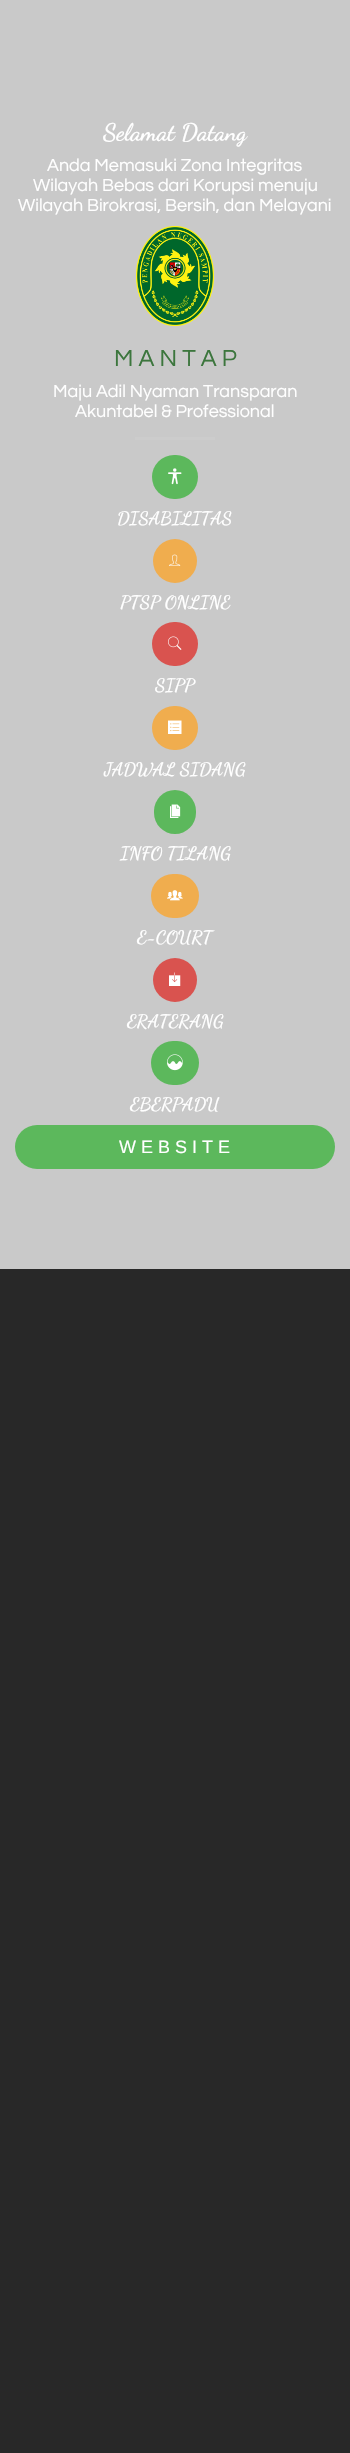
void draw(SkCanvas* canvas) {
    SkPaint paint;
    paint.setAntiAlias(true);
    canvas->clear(0xFF282828);
    paint.setColor(0xFFC9C9C9);
    canvas->drawRect(SkRect::MakeXYWH(0, 0, 350, 1269), paint);
    SkFont font1(fontMgr->matchFamilyStyle("Dancing Script", SkFontStyle::Bold()), 24);
    font1.setSubpixel(true);
    paint.setColor(0xFFFFFFFF);
    canvas->drawString("Selamat Datang", 103, 140, font1, paint);
    SkFont font2(fontMgr->matchFamilyStyle("Questrial", SkFontStyle::Normal()), 18);
    font2.setSubpixel(true);
    canvas->drawString("Anda Memasuki Zona Integritas", 47, 171, font2, paint);
    canvas->drawString("Wilayah Bebas dari Korupsi menuju", 33, 191, font2, paint);
    canvas->drawString("Wilayah Birokrasi, Bersih, dan Melayani", 18, 211, font2, paint);
    canvas->drawImageRect(SkImages::DeferredFromEncodedData(SkData::MakeFromFileName("img1.png")), SkRect::MakeXYWH(136, 226, 78, 100), SkSamplingOptions());
    SkFont font3(fontMgr->matchFamilyStyle("Questrial", SkFontStyle::Normal()), 24);
    font3.setSubpixel(true);
    paint.setColor(0xFF3C763D);
    canvas->drawString("M A N T A P", 114, 366, font3, paint);
    paint.setColor(0xFFFFFFFF);
    canvas->drawString("Maju Adil Nyaman Transparan", 53, 397, font2, paint);
    canvas->drawString("Akuntabel & Professional", 75, 417, font2, paint);
    paint.setColor(0xFFCCCCCC);
    canvas->drawRect(SkRect::MakeXYWH(135, 437, 80, 3), paint);
    paint.setColor(0xFF5CB85C);
    canvas->drawRoundRect(SkRect::MakeXYWH(152, 455, 46, 44), 22, 22, paint);
    canvas->drawImageRect(SkImages::DeferredFromEncodedData(SkData::MakeFromFileName("img2.png")), SkRect::MakeXYWH(168, 468, 14, 17), SkSamplingOptions());
    SkFont font4(fontMgr->matchFamilyStyle("Dancing Script", SkFontStyle::Bold()), 18);
    font4.setSubpixel(true);
    paint.setColor(0xFFFFFFFF);
    canvas->drawString("DISABILITAS", 117, 524, font4, paint);
    paint.setColor(0xFFF0AD4E);
    canvas->drawCircle(175, 561, 22, paint);
    canvas->drawImageRect(SkImages::DeferredFromEncodedData(SkData::MakeFromFileName("img3.png")), SkRect::MakeXYWH(169, 554, 12, 12), SkSamplingOptions());
    paint.setColor(0xFFFFFFFF);
    canvas->drawString("PTSP ONLINE", 120, 608, font4, paint);
    paint.setColor(0xFFD9534F);
    canvas->drawRoundRect(SkRect::MakeXYWH(152, 622, 46, 44), 22, 22, paint);
    canvas->drawImageRect(SkImages::DeferredFromEncodedData(SkData::MakeFromFileName("img4.png")), SkRect::MakeXYWH(168, 636, 14, 14), SkSamplingOptions());
    paint.setColor(0xFFFFFFFF);
    canvas->drawString("SIPP", 155, 691, font4, paint);
    paint.setColor(0xFFF0AD4E);
    canvas->drawRoundRect(SkRect::MakeXYWH(152, 706, 46, 44), 22, 22, paint);
    canvas->drawImageRect(SkImages::DeferredFromEncodedData(SkData::MakeFromFileName("img5.png")), SkRect::MakeXYWH(168, 720, 14, 14), SkSamplingOptions());
    paint.setColor(0xFFFFFFFF);
    canvas->drawString("JADWAL SIDANG", 104, 775, font4, paint);
    paint.setColor(0xFF5CB85C);
    canvas->drawRoundRect(SkRect::MakeXYWH(154, 790, 42, 44), 21, 21, paint);
    canvas->drawImageRect(SkImages::DeferredFromEncodedData(SkData::MakeFromFileName("img6.png")), SkRect::MakeXYWH(170, 804, 11, 14), SkSamplingOptions());
    paint.setColor(0xFFFFFFFF);
    canvas->drawString("INFO TILANG", 120, 859, font4, paint);
    paint.setColor(0xFFF0AD4E);
    canvas->drawRoundRect(SkRect::MakeXYWH(151, 874, 48, 44), 22, 22, paint);
    canvas->drawImageRect(SkImages::DeferredFromEncodedData(SkData::MakeFromFileName("img7.png")), SkRect::MakeXYWH(167, 890, 16, 11), SkSamplingOptions());
    paint.setColor(0xFFFFFFFF);
    canvas->drawString("E-COURT", 137, 943, font4, paint);
    paint.setColor(0xFFD9534F);
    canvas->drawCircle(175, 980, 22, paint);
    canvas->drawImageRect(SkImages::DeferredFromEncodedData(SkData::MakeFromFileName("img8.png")), SkRect::MakeXYWH(169, 972, 12, 14), SkSamplingOptions());
    paint.setColor(0xFFFFFFFF);
    canvas->drawString("ERATERANG", 127, 1027, font4, paint);
    paint.setColor(0xFF5CB85C);
    canvas->drawRoundRect(SkRect::MakeXYWH(151, 1041, 48, 44), 22, 22, paint);
    canvas->drawImageRect(SkImages::DeferredFromEncodedData(SkData::MakeFromFileName("img9.png")), SkRect::MakeXYWH(167, 1054, 16, 17), SkSamplingOptions());
    paint.setColor(0xFFFFFFFF);
    canvas->drawString("EBERPADU", 130, 1110, font4, paint);
    paint.setColor(0xFF5CB85C);
    canvas->drawRoundRect(SkRect::MakeXYWH(15, 1125, 320, 44), 22, 22, paint);
    SkFont font5(fontMgr->matchFamilyStyle("Liberation Sans", SkFontStyle::Normal()), 18);
    font5.setSubpixel(true);
    paint.setColor(0xFFFFFFFF);
    canvas->drawString("W E B S I T E", 119, 1153, font5, paint);
}
